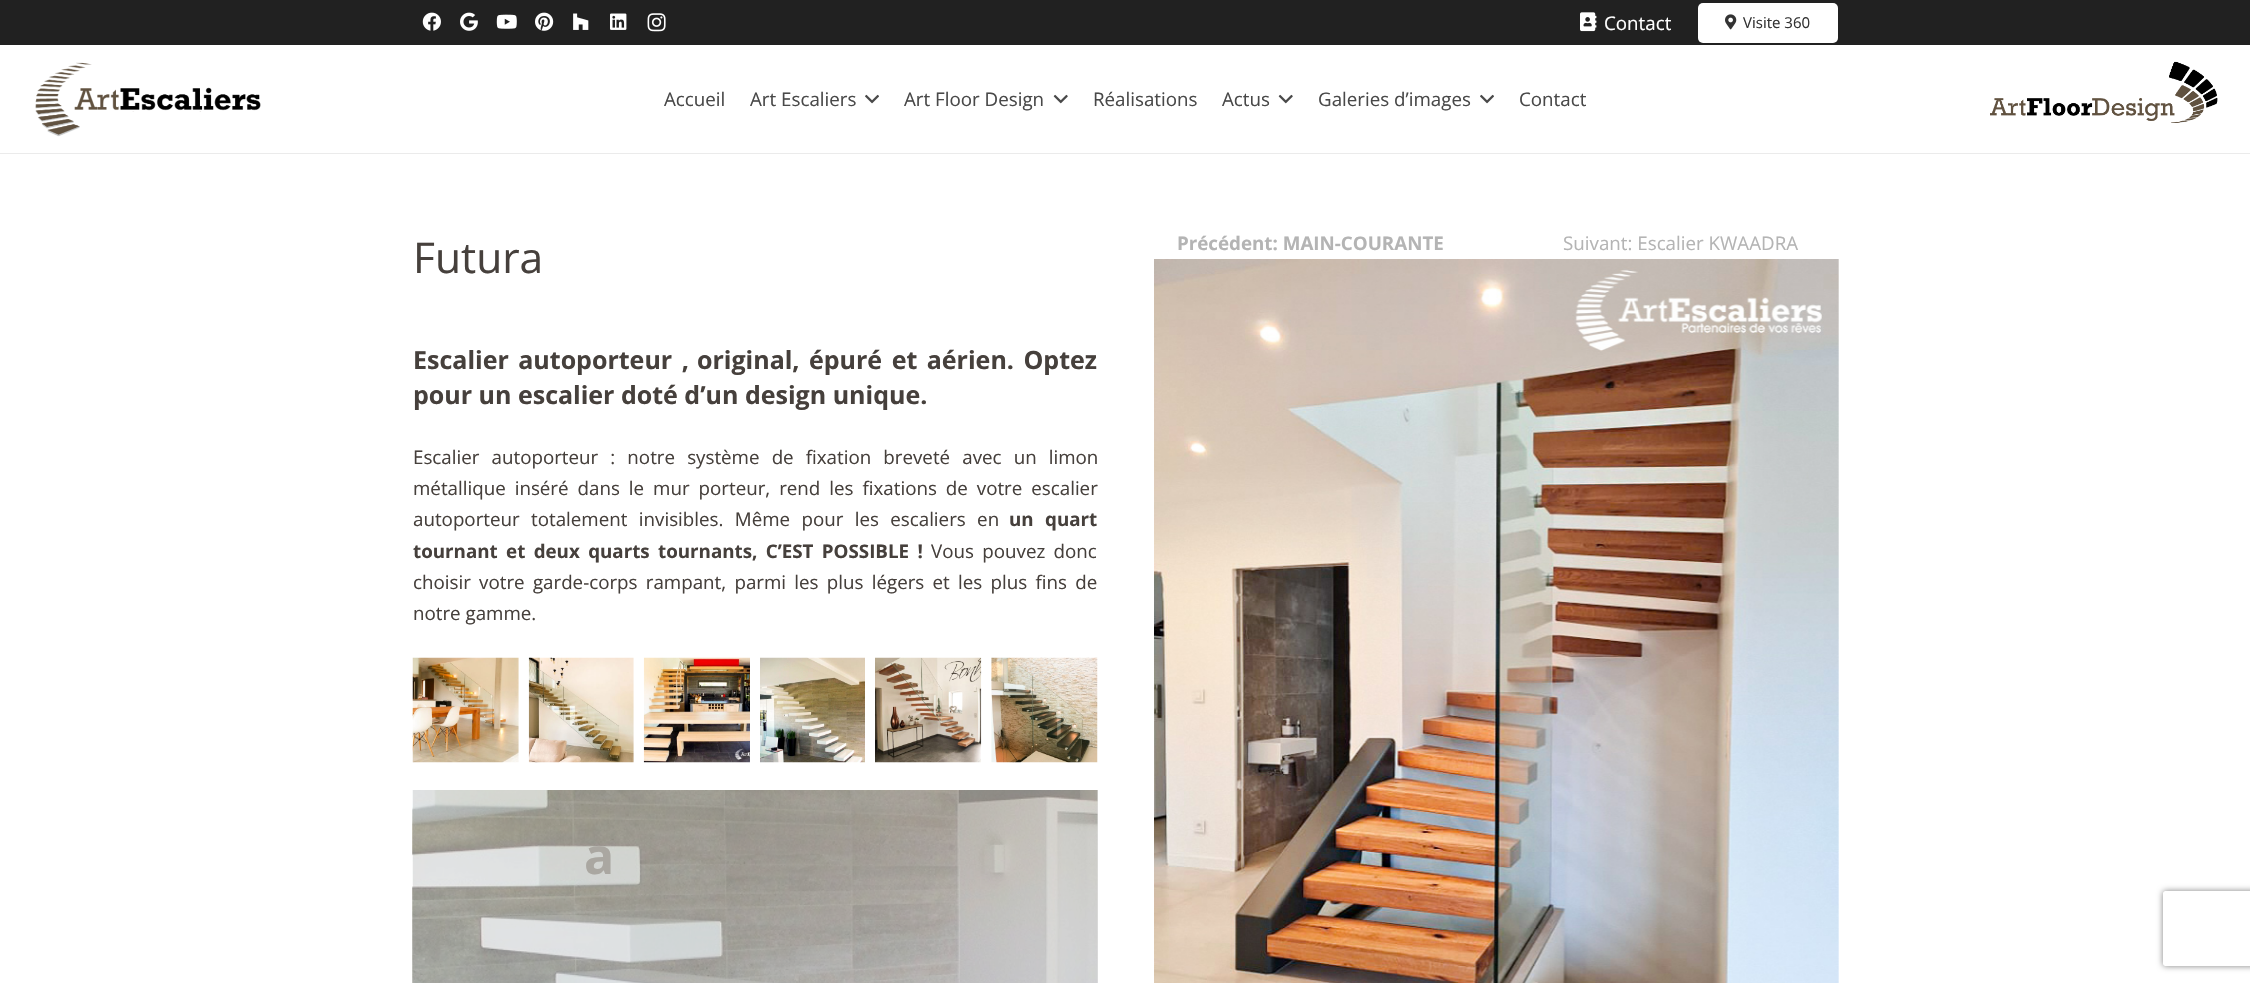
void draw(SkCanvas* canvas) {
    SkPaint paint;
    paint.setAntiAlias(true);
    auto spacedText = [&](const char* s, float x, float y, const SkFont& font, const SkPaint& ink, float letter, float word) {
        std::vector<SkGlyphID> glyphs(font.countText(s, strlen(s), SkTextEncoding::kUTF8));
        std::vector<float> xs(glyphs.size());
        font.textToGlyphs(s, strlen(s), SkTextEncoding::kUTF8, glyphs);
        font.getXPos(glyphs, xs, x);
        float extra = 0;
        for (size_t i = 0; i < glyphs.size(); i++) {
            xs[i] += extra;
            extra += letter + word * (glyphs[i] == font.unicharToGlyph(' '));
        }
        canvas->drawTextBlob(SkTextBlob::MakeFromPosHGlyphs(glyphs, xs, y, font), 0, 0, ink);
    };
    canvas->clear(0xFFFFFFFF);
    paint.setColor(0xFF212121);
    canvas->drawRect(SkRect::MakeXYWH(0, 0, 2250, 45), paint);
    canvas->drawImageRect(SkImages::DeferredFromEncodedData(SkData::MakeFromFileName("img1.png")), SkRect::MakeXYWH(422, 12, 19, 19), SkSamplingOptions());
    canvas->drawImageRect(SkImages::DeferredFromEncodedData(SkData::MakeFromFileName("img2.png")), SkRect::MakeXYWH(460, 12, 18, 19), SkSamplingOptions());
    canvas->drawImageRect(SkImages::DeferredFromEncodedData(SkData::MakeFromFileName("img3.png")), SkRect::MakeXYWH(496, 14, 21, 15), SkSamplingOptions());
    canvas->drawImageRect(SkImages::DeferredFromEncodedData(SkData::MakeFromFileName("img4.png")), SkRect::MakeXYWH(535, 12, 19, 19), SkSamplingOptions());
    canvas->drawImageRect(SkImages::DeferredFromEncodedData(SkData::MakeFromFileName("img5.png")), SkRect::MakeXYWH(573, 13, 16, 17), SkSamplingOptions());
    canvas->drawImageRect(SkImages::DeferredFromEncodedData(SkData::MakeFromFileName("img6.png")), SkRect::MakeXYWH(610, 13, 17, 17), SkSamplingOptions());
    canvas->drawImageRect(SkImages::DeferredFromEncodedData(SkData::MakeFromFileName("img7.png")), SkRect::MakeXYWH(647, 13, 19, 19), SkSamplingOptions());
    canvas->drawImageRect(SkImages::DeferredFromEncodedData(SkData::MakeFromFileName("img8.png")), SkRect::MakeXYWH(1580, 12, 17, 20), SkSamplingOptions());
    SkFont font1(fontMgr->matchFamilyStyle("Open Sans", SkFontStyle::Normal()), 18.75f);
    font1.setSubpixel(true);
    paint.setColor(0xFFFFFFFF);
    canvas->drawString("Contact", 1604, 30, font1, paint);
    canvas->drawRoundRect(SkRect::MakeXYWH(1698, 3, 140, 40), 5, 5, paint);
    canvas->drawImageRect(SkImages::DeferredFromEncodedData(SkData::MakeFromFileName("img9.png")), SkRect::MakeXYWH(1725, 14, 12, 16), SkSamplingOptions());
    SkFont font2(fontMgr->matchFamilyStyle("Open Sans", SkFontStyle::Normal()), 15);
    font2.setSubpixel(true);
    paint.setColor(0xFF333333);
    canvas->drawString("Visite 360", 1743, 28, font2, paint);
    paint.setColor(0xFFEBEBEB);
    canvas->drawRect(SkRect::MakeXYWH(0, 153, 2250, 1), paint);
    canvas->drawImageRect(SkImages::DeferredFromEncodedData(SkData::MakeFromFileName("img10.png")), SkRect::MakeXYWH(35, 62, 226, 75), SkSamplingOptions());
    paint.setColor(0xFF494949);
    canvas->drawString("Accueil", 664, 106, font1, paint);
    canvas->drawString("Art Escaliers", 750, 106, font1, paint);
    canvas->drawImageRect(SkImages::DeferredFromEncodedData(SkData::MakeFromFileName("img11.png")), SkRect::MakeXYWH(865, 94, 14, 10), SkSamplingOptions());
    canvas->drawString("Art Floor Design", 904, 106, font1, paint);
    canvas->drawImageRect(SkImages::DeferredFromEncodedData(SkData::MakeFromFileName("img12.png")), SkRect::MakeXYWH(1053, 94, 15, 10), SkSamplingOptions());
    canvas->drawString("Réalisations", 1093, 106, font1, paint);
    canvas->drawString("Actus", 1222, 106, font1, paint);
    canvas->drawImageRect(SkImages::DeferredFromEncodedData(SkData::MakeFromFileName("img12.png")), SkRect::MakeXYWH(1278, 94, 15, 10), SkSamplingOptions());
    canvas->drawString("Galeries d’images", 1318, 106, font1, paint);
    canvas->drawImageRect(SkImages::DeferredFromEncodedData(SkData::MakeFromFileName("img11.png")), SkRect::MakeXYWH(1480, 94, 14, 10), SkSamplingOptions());
    canvas->drawString("Contact", 1519, 106, font1, paint);
    canvas->drawImageRect(SkImages::DeferredFromEncodedData(SkData::MakeFromFileName("img13.png")), SkRect::MakeXYWH(1990, 61, 228, 62), SkSamplingOptions());
    SkFont font3(fontMgr->matchFamilyStyle("Open Sans", SkFontStyle::Normal()), 42.5f);
    font3.setSubpixel(true);
    paint.setColor(0xFF46403C);
    canvas->drawString("Futura", 413, 273, font3, paint);
    SkFont font4(fontMgr->matchFamilyStyle("Open Sans", SkFontStyle::Bold()), 25);
    font4.setSubpixel(true);
    spacedText("Escalier autoporteur ,", 413, 369, font4, paint, 0, 3);
    spacedText("original, épuré et aérien. Optez", 697, 369, font4, paint, 0, 3);
    canvas->drawString("pour un escalier doté d’un design unique.", 413, 404, font4, paint);
    spacedText("Escalier autoporteur : notre système de fixation breveté avec un limon", 413, 464, font1, paint, 0, 7.25f);
    spacedText("métallique inséré dans le mur porteur, rend les fixations de votre escalier", 413, 495, font1, paint, 0, 4.1f);
    spacedText("autoporteur totalement invisibles. Même pour les escaliers en", 413, 526, font1, paint, 0, 6.5f);
    SkFont font5(fontMgr->matchFamilyStyle("Open Sans", SkFontStyle::Bold()), 18.75f);
    font5.setSubpixel(true);
    spacedText("un quart", 1009, 526, font5, paint, 0, 6.5f);
    spacedText("tournant et deux quarts tournants, C’EST POSSIBLE !", 413, 558, font5, paint, 0, 3.5f);
    spacedText("Vous pouvez donc", 931, 558, font1, paint, 0, 3.5f);
    spacedText("choisir votre garde-corps rampant, parmi les plus légers et les plus fins de", 413, 589, font1, paint, 0, 3.4f);
    canvas->drawString("notre gamme.", 413, 620, font1, paint);
    canvas->drawImageRect(SkImages::DeferredFromEncodedData(SkData::MakeFromFileName("img14.png")), SkRect::MakeXYWH(412, 657, 107, 106), SkSamplingOptions());
    canvas->drawImageRect(SkImages::DeferredFromEncodedData(SkData::MakeFromFileName("img15.png")), SkRect::MakeXYWH(528, 657, 106, 106), SkSamplingOptions());
    canvas->drawImageRect(SkImages::DeferredFromEncodedData(SkData::MakeFromFileName("img16.png")), SkRect::MakeXYWH(643, 657, 107, 106), SkSamplingOptions());
    canvas->drawImageRect(SkImages::DeferredFromEncodedData(SkData::MakeFromFileName("img17.png")), SkRect::MakeXYWH(760, 657, 105, 106), SkSamplingOptions());
    canvas->drawImageRect(SkImages::DeferredFromEncodedData(SkData::MakeFromFileName("img18.png")), SkRect::MakeXYWH(875, 657, 107, 106), SkSamplingOptions());
    canvas->drawImageRect(SkImages::DeferredFromEncodedData(SkData::MakeFromFileName("img19.png")), SkRect::MakeXYWH(991, 657, 107, 106), SkSamplingOptions());
    paint.setColor(0xFFE2E2E2);
    canvas->drawRect(SkRect::MakeXYWH(1097, 790, 1, 193), paint);
    canvas->drawImageRect(SkImages::DeferredFromEncodedData(SkData::MakeFromFileName("img20.png")), SkRect::MakeXYWH(412, 790, 686, 193), SkSamplingOptions());
    SkFont font6(fontMgr->matchFamilyStyle("Open Sans", SkFontStyle::Bold()), 50);
    font6.setSubpixel(true);
    paint.setColor(0xFFAAA7A1);
    canvas->drawString("a", 584, 874, font6, paint);
    paint.setColor(0xFFB4B4B4);
    canvas->drawString("Précédent: MAIN-COURANTE", 1177, 250, font5, paint);
    canvas->drawString("Suivant: Escalier KWAADRA", 1563, 250, font1, paint);
    canvas->drawImageRect(SkImages::DeferredFromEncodedData(SkData::MakeFromFileName("img21.png")), SkRect::MakeXYWH(1154, 259, 685, 724), SkSamplingOptions());
    canvas->save();
    canvas->clipPath(SkPathBuilder(SkPathFillType::kEvenOdd).moveTo(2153, 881).lineTo(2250, 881).lineTo(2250, 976).lineTo(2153, 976).close().moveTo(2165.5f, 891).lineTo(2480.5f, 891).cubicTo(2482, 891, 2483, 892, 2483, 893.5f).lineTo(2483, 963.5f).cubicTo(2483, 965, 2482, 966, 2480.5f, 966).lineTo(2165.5f, 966).cubicTo(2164, 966, 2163, 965, 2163, 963.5f).lineTo(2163, 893.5f).cubicTo(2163, 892, 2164, 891, 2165.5f, 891).close().detach(), true);
    paint.setColor(0xFF808080);
    paint.setMaskFilter(SkMaskFilter::MakeBlur(kNormal_SkBlurStyle, 3));
    canvas->drawRoundRect(SkRect::MakeXYWH(2163, 891, 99, 75), 2.5f, 2.5f, paint);
    paint.setMaskFilter(nullptr);
    canvas->restore();
}
